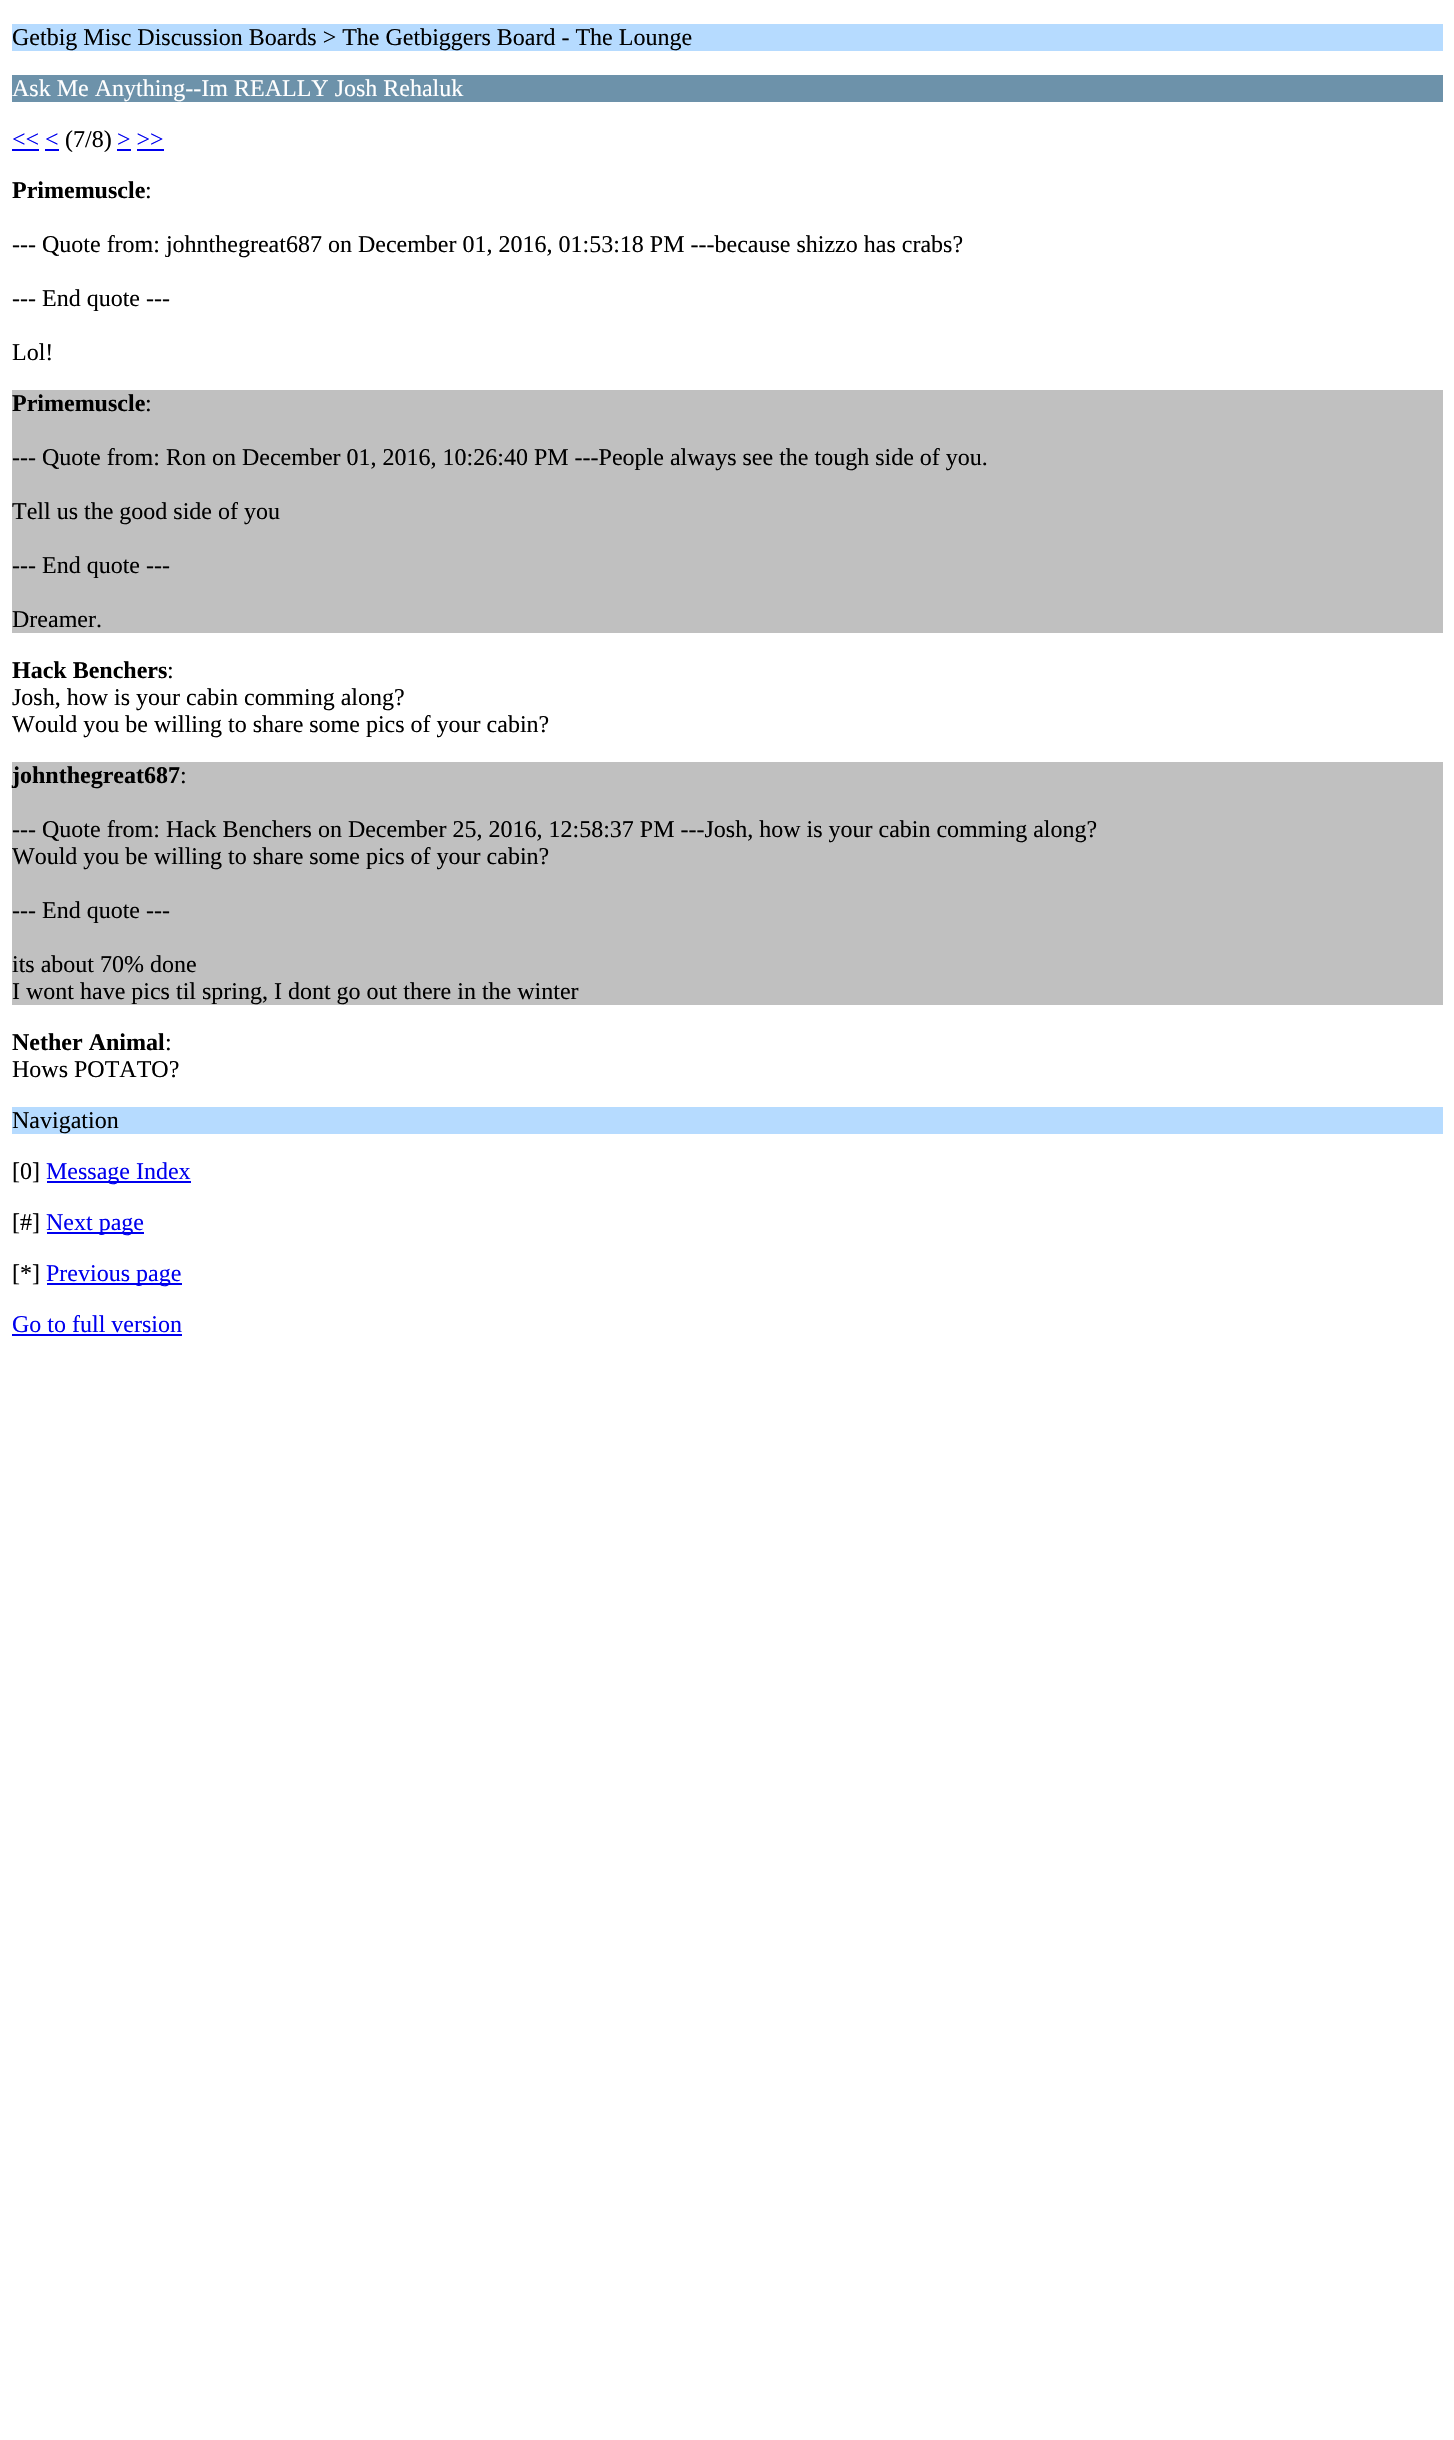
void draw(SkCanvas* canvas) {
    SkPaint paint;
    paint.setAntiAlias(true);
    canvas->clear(0xFFFFFFFF);
    paint.setColor(0xFFB6DBFF);
    canvas->drawRect(SkRect::MakeXYWH(12, 24, 1431, 27), paint);
    SkFont font1(fontMgr->matchFamilyStyle("Liberation Serif", SkFontStyle::Normal()), 24);
    font1.setSubpixel(true);
    paint.setColor(0xFF000000);
    canvas->drawString("Getbig Misc Discussion Boards > The Getbiggers Board - The Lounge", 12, 45, font1, paint);
    paint.setColor(0xFF6D92AA);
    canvas->drawRect(SkRect::MakeXYWH(12, 75, 1431, 27), paint);
    paint.setColor(0xFFFFFFFF);
    canvas->drawString("Ask Me Anything--Im REALLY Josh Rehaluk", 12, 96, font1, paint);
    paint.setColor(0xFF0000EE);
    canvas->drawString("<< <", 12, 147, font1, paint);
    canvas->drawRect(SkRect::MakeXYWH(12, 149, 27, 2), paint);
    paint.setColor(0xFF000000);
    canvas->drawString("(7/8)", 65, 147, font1, paint);
    paint.setColor(0xFF0000EE);
    canvas->drawString("> >>", 117, 147, font1, paint);
    canvas->drawRect(SkRect::MakeXYWH(117, 149, 14, 2), paint);
    canvas->drawRect(SkRect::MakeXYWH(45, 149, 14, 2), paint);
    canvas->drawRect(SkRect::MakeXYWH(137, 149, 27, 2), paint);
    SkFont font2(fontMgr->matchFamilyStyle("Liberation Serif", SkFontStyle::Bold()), 24);
    font2.setSubpixel(true);
    paint.setColor(0xFF000000);
    canvas->drawString("Primemuscle", 12, 198, font2, paint);
    canvas->drawString(":", 145, 198, font1, paint);
    canvas->drawString("--- Quote from: johnthegreat687 on December 01, 2016, 01:53:18 PM ---because shizzo has crabs?", 12, 252, font1, paint);
    canvas->drawString("--- End quote ---", 12, 306, font1, paint);
    canvas->drawString("Lol!", 12, 360, font1, paint);
    paint.setColor(0xFFC0C0C0);
    canvas->drawRect(SkRect::MakeXYWH(12, 390, 1431, 243), paint);
    paint.setColor(0xFF000000);
    canvas->drawString("Primemuscle", 12, 411, font2, paint);
    canvas->drawString(":", 145, 411, font1, paint);
    canvas->drawString("--- Quote from: Ron on December 01, 2016, 10:26:40 PM ---People always see the tough side of you.", 12, 465, font1, paint);
    canvas->drawString("Tell us the good side of you", 12, 519, font1, paint);
    canvas->drawString("--- End quote ---", 12, 573, font1, paint);
    canvas->drawString("Dreamer.", 12, 627, font1, paint);
    canvas->drawString("Hack Benchers", 12, 678, font2, paint);
    canvas->drawString(":", 167, 678, font1, paint);
    canvas->drawString("Josh, how is your cabin comming along?", 12, 705, font1, paint);
    canvas->drawString("Would you be willing to share some pics of your cabin?", 12, 732, font1, paint);
    paint.setColor(0xFFC0C0C0);
    canvas->drawRect(SkRect::MakeXYWH(12, 762, 1431, 243), paint);
    paint.setColor(0xFF000000);
    canvas->drawString("johnthegreat687", 12, 783, font2, paint);
    canvas->drawString(":", 180, 783, font1, paint);
    canvas->drawString("--- Quote from: Hack Benchers on December 25, 2016, 12:58:37 PM ---Josh, how is your cabin comming along?", 12, 837, font1, paint);
    canvas->drawString("Would you be willing to share some pics of your cabin?", 12, 864, font1, paint);
    canvas->drawString("--- End quote ---", 12, 918, font1, paint);
    canvas->drawString("its about 70% done", 12, 972, font1, paint);
    canvas->drawString("I wont have pics til spring, I dont go out there in the winter", 12, 999, font1, paint);
    canvas->drawString("Nether Animal", 12, 1050, font2, paint);
    canvas->drawString(":", 165, 1050, font1, paint);
    canvas->drawString("Hows POTATO?", 12, 1077, font1, paint);
    paint.setColor(0xFFB6DBFF);
    canvas->drawRect(SkRect::MakeXYWH(12, 1107, 1431, 27), paint);
    paint.setColor(0xFF000000);
    canvas->drawString("Navigation", 12, 1128, font1, paint);
    canvas->drawString("[0]", 12, 1179, font1, paint);
    paint.setColor(0xFF0000EE);
    canvas->drawRect(SkRect::MakeXYWH(47, 1181, 144, 2), paint);
    canvas->drawString("Message Index", 46, 1179, font1, paint);
    paint.setColor(0xFF000000);
    canvas->drawString("[#]", 12, 1230, font1, paint);
    paint.setColor(0xFF0000EE);
    canvas->drawRect(SkRect::MakeXYWH(47, 1232, 97, 2), paint);
    canvas->drawString("Next page", 46, 1230, font1, paint);
    paint.setColor(0xFF000000);
    canvas->drawString("[*]", 12, 1281, font1, paint);
    paint.setColor(0xFF0000EE);
    canvas->drawRect(SkRect::MakeXYWH(47, 1283, 135, 2), paint);
    canvas->drawString("Previous page", 46, 1281, font1, paint);
    canvas->drawString("Go to full version", 12, 1332, font1, paint);
    canvas->drawRect(SkRect::MakeXYWH(12, 1334, 170, 2), paint);
}
